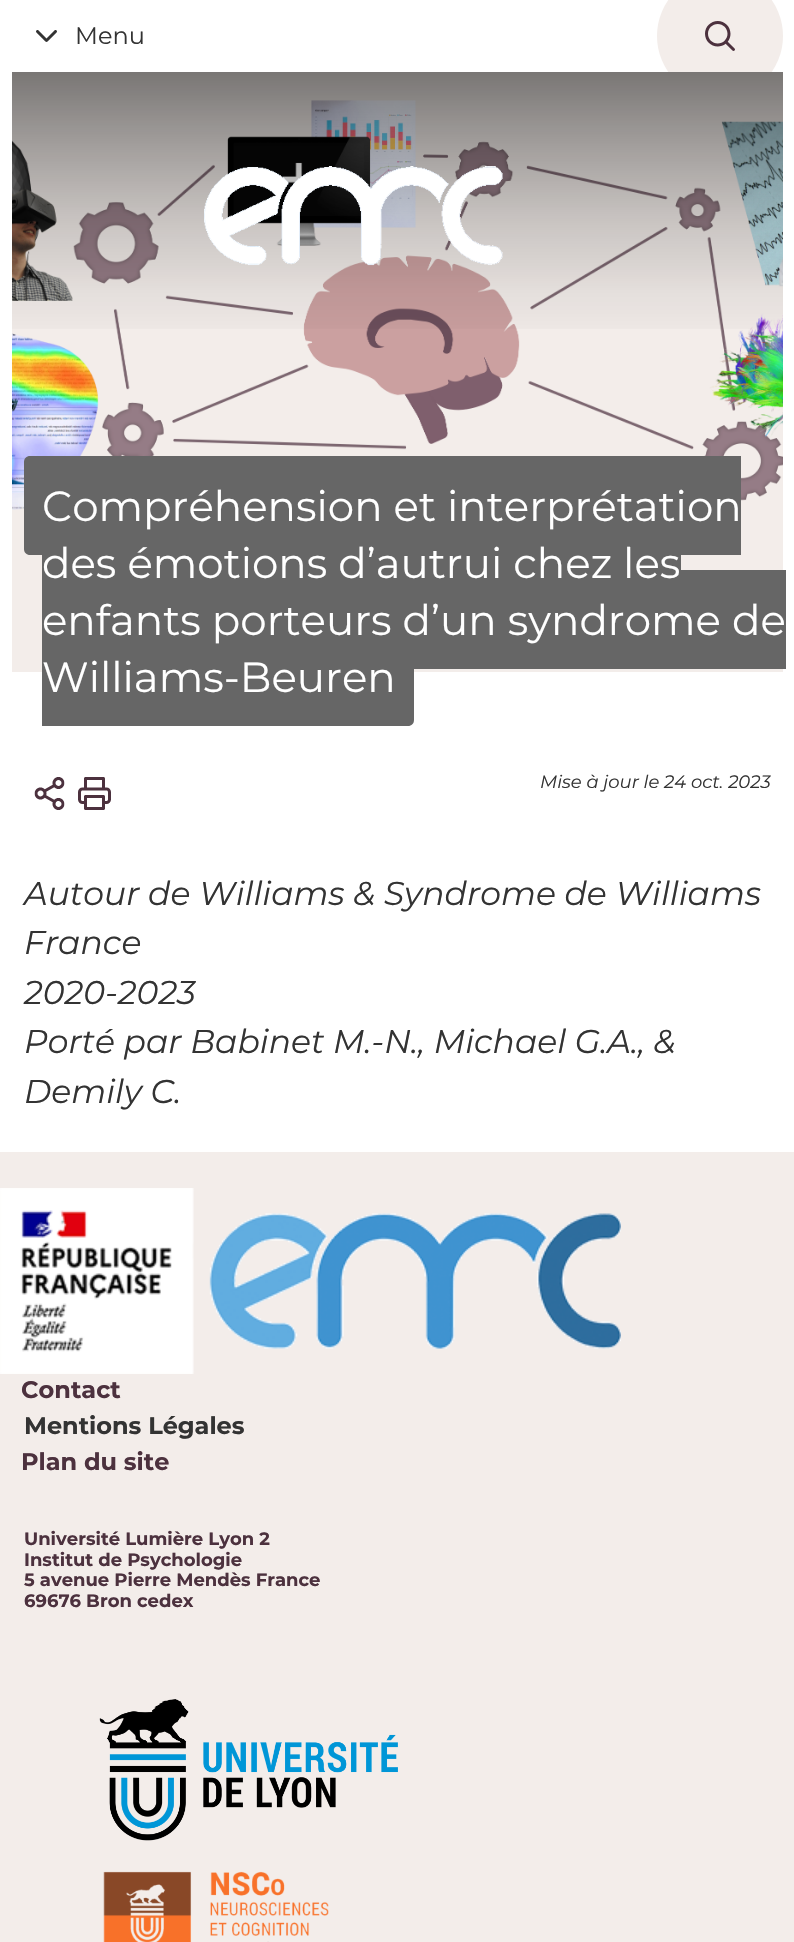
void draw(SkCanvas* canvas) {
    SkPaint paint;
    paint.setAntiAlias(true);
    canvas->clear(0xFFFFFFFF);
    canvas->drawImageRect(SkImages::DeferredFromEncodedData(SkData::MakeFromFileName("img1.png")), SkRect::MakeXYWH(36, 30, 21, 12), SkSamplingOptions());
    SkFont font1(fontMgr->matchFamilyStyle("Montserrat", SkFontStyle::Normal()), 24);
    font1.setSubpixel(true);
    paint.setColor(0xFF333333);
    canvas->drawString("Menu", 75, 44, font1, paint);
    paint.setColor(0xFFF3EDEA);
    canvas->drawRect(SkRect::MakeXYWH(12, 72, 771, 600), paint);
    canvas->drawImageRect(SkImages::DeferredFromEncodedData(SkData::MakeFromFileName("img4.png")), SkRect::MakeXYWH(12, 100, 771, 482), SkSamplingOptions());
    {
        const SkColor colors[] = {0x80000000, 0x5E000000, 0x45000000, 0x30000000, 0x24000000, 0x1A000000, 0x0F000000, 0x0A000000, 0x05000000, 0x03000000, 0x00000000, 0x00000000, 0x00000000};
        const float stops[] = {0, 0.19f, 0.34f, 0.47f, 0.56f, 0.65f, 0.73f, 0.8f, 0.86f, 0.91f, 0.95f, 0.98f, 1};
        const SkPoint ends[] = {{398, 72}, {398, 372}};
        paint.setShader(SkGradientShader::MakeLinear(ends, colors, stops, 13, SkTileMode::kClamp));
        paint.setAlpha(255);
    }
    canvas->drawRect(SkRect::MakeXYWH(12, 72, 771, 257), paint);
    canvas->save();
    canvas->clipRect(SkRect::MakeXYWH(645, 0, 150, 72));
    paint.setShader(nullptr);
    paint.setColor(0xFFF3EDEA);
    canvas->drawCircle(720, 36, 63, paint);
    canvas->restore();
    canvas->drawImageRect(SkImages::DeferredFromEncodedData(SkData::MakeFromFileName("img2.png")), SkRect::MakeXYWH(705, 21, 30, 30), SkSamplingOptions());
    canvas->drawImageRect(SkImages::DeferredFromEncodedData(SkData::MakeFromFileName("img3.png")), SkRect::MakeXYWH(204, 166, 299, 100), SkSamplingOptions());
    paint.setColor(0xFF666666);
    canvas->drawPath(SkPathBuilder().moveTo(30, 456).lineTo(741, 456).lineTo(741, 555).lineTo(30, 555).cubicTo(26.5f, 555, 24, 552.5f, 24, 549).lineTo(24, 462).cubicTo(24, 458.5f, 26.5f, 456, 30, 456).close().detach(), paint);
    SkFont font2(fontMgr->matchFamilyStyle("Montserrat", SkFontStyle::Normal()), 42);
    font2.setSubpixel(true);
    paint.setColor(0xFFFFFFFF);
    canvas->drawString("Compréhension et interprétation", 42, 521, font2, paint);
    paint.setColor(0xFF666666);
    canvas->drawRect(SkRect::MakeXYWH(42, 555, 639, 15), paint);
    canvas->drawRect(SkRect::MakeXYWH(42, 570, 744, 99), paint);
    paint.setColor(0xFFFFFFFF);
    canvas->drawString("des émotions d’autrui chez les", 42, 578, font2, paint);
    paint.setColor(0xFF666666);
    canvas->drawPath(SkPathBuilder().moveTo(42, 627).lineTo(408, 627).cubicTo(411.5f, 627, 414, 629.5f, 414, 633).lineTo(414, 720).cubicTo(414, 723.5f, 411.5f, 726, 408, 726).lineTo(42, 726).close().detach(), paint);
    paint.setColor(0xFFFFFFFF);
    canvas->drawString("enfants porteurs d’un syndrome de", 42, 635, font2, paint);
    canvas->drawString("Williams-Beuren", 42, 692, font2, paint);
    canvas->drawImageRect(SkImages::DeferredFromEncodedData(SkData::MakeFromFileName("img5.png")), SkRect::MakeXYWH(34, 777, 31, 33), SkSamplingOptions());
    canvas->drawImageRect(SkImages::DeferredFromEncodedData(SkData::MakeFromFileName("img6.png")), SkRect::MakeXYWH(78, 777, 33, 33), SkSamplingOptions());
    SkFont font3(fontMgr->matchFamilyStyle("Montserrat", SkFontStyle::Italic()), 18);
    font3.setSubpixel(true);
    paint.setColor(0xFF333333);
    canvas->drawString("Mise à jour le 24 oct. 2023", 540, 788, font3, paint);
    SkFont font4(fontMgr->matchFamilyStyle("Montserrat", SkFontStyle::Italic()), 33);
    font4.setSubpixel(true);
    canvas->drawString("Autour de Williams & Syndrome de Williams", 24, 905, font4, paint);
    canvas->drawString("France", 24, 954, font4, paint);
    canvas->drawString("2020-2023", 24, 1004, font4, paint);
    canvas->drawString("Porté par Babinet M.-N., Michael G.A., &", 24, 1053, font4, paint);
    canvas->drawString("Demily C.", 24, 1103, font4, paint);
    paint.setColor(0xFFF3EDEA);
    canvas->drawRect(SkRect::MakeXYWH(0, 1152, 794, 790), paint);
    canvas->drawImageRect(SkImages::DeferredFromEncodedData(SkData::MakeFromFileName("img7.png")), SkRect::MakeXYWH(0, 1188, 621, 186), SkSamplingOptions());
    SkFont font5(fontMgr->matchFamilyStyle("Montserrat", SkFontStyle::Bold()), 24);
    font5.setSubpixel(true);
    paint.setColor(0xFF4C313E);
    canvas->drawString("Contact", 21, 1398, font5, paint);
    paint.setColor(0xFF333333);
    canvas->drawString("Mentions Légales", 24, 1434, font5, paint);
    paint.setColor(0xFF4C313E);
    canvas->drawString("Plan du site", 21, 1470, font5, paint);
    SkFont font6(fontMgr->matchFamilyStyle("Montserrat", SkFontStyle::Bold()), 18);
    font6.setSubpixel(true);
    canvas->drawString("Université Lumière Lyon 2", 24, 1545, font6, paint);
    canvas->drawString("Institut de Psychologie", 24, 1566, font6, paint);
    canvas->drawString("5 avenue Pierre Mendès France", 24, 1586, font6, paint);
    canvas->drawString("69676 Bron cedex", 24, 1607, font6, paint);
    canvas->drawImageRect(SkImages::DeferredFromEncodedData(SkData::MakeFromFileName("img8.png")), SkRect::MakeXYWH(99, 1699, 299, 142), SkSamplingOptions());
    canvas->drawImageRect(SkImages::DeferredFromEncodedData(SkData::MakeFromFileName("img9.png")), SkRect::MakeXYWH(103, 1871, 226, 71), SkSamplingOptions());
}
